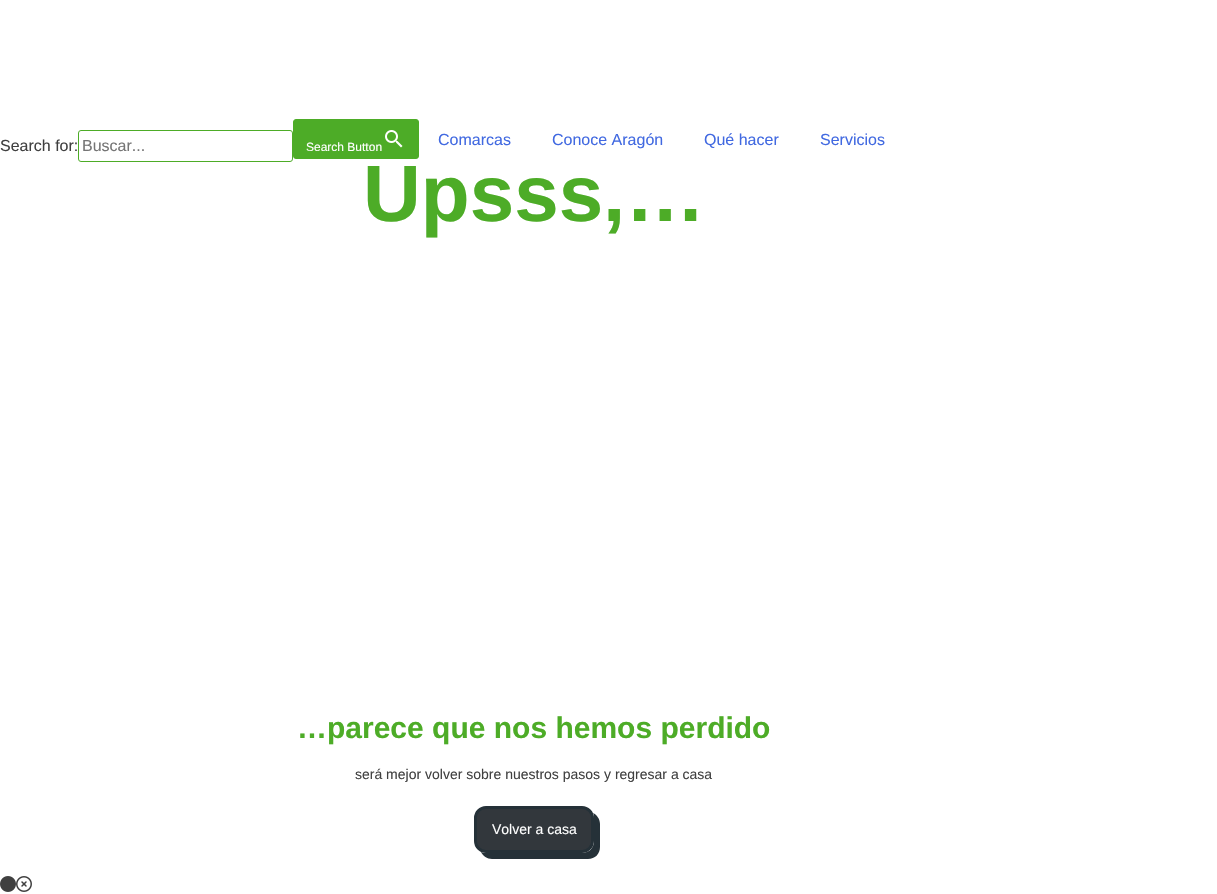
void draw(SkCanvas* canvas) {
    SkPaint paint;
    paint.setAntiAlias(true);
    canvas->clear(0xFFFFFFFF);
    SkFont font1(fontMgr->matchFamilyStyle("Liberation Sans", SkFontStyle::Normal()), 16);
    font1.setSubpixel(true);
    paint.setColor(0xFF404040);
    canvas->drawString("Search for:", 0, 151, font1, paint);
    paint.setStyle(SkPaint::kStroke_Style);
    paint.setStrokeWidth(1);
    paint.setColor(0xFF4DAC27);
    canvas->drawRoundRect(SkRect::MakeXYWH(78.5f, 130.5f, 214, 31), 2.5f, 2.5f, paint);
    paint.setStyle(SkPaint::kFill_Style);
    paint.setColor(0xFF757575);
    canvas->drawString("Buscar...", 82, 151, font1, paint);
    paint.setColor(0xFF4DAC27);
    canvas->drawRoundRect(SkRect::MakeXYWH(293.5f, 119.5f, 125, 39), 2.5f, 2.5f, paint);
    paint.setStyle(SkPaint::kStroke_Style);
    canvas->drawRoundRect(SkRect::MakeXYWH(293.5f, 119.5f, 125, 39), 2.5f, 2.5f, paint);
    SkFont font2(fontMgr->matchFamilyStyle("Liberation Sans", SkFontStyle::Normal()), 12);
    font2.setSubpixel(true);
    paint.setStyle(SkPaint::kFill_Style);
    paint.setColor(0xFFFFFFFF);
    canvas->drawString("Search Button", 306, 151, font2, paint);
    canvas->drawImageRect(SkImages::DeferredFromEncodedData(SkData::MakeFromFileName("img1.png")), SkRect::MakeXYWH(385, 130, 18, 18), SkSamplingOptions());
    paint.setColor(0xFF4169E1);
    canvas->drawString("Comarcas", 438, 145, font1, paint);
    canvas->drawString("Conoce Aragón", 552, 145, font1, paint);
    canvas->drawString("Qué hacer", 704, 145, font1, paint);
    canvas->drawString("Servicios", 820, 145, font1, paint);
    SkFont font3(fontMgr->matchFamilyStyle("Liberation Sans", SkFontStyle::Bold()), 80);
    font3.setSubpixel(true);
    paint.setColor(0xFF4DAC27);
    canvas->drawString("Upsss,…", 363, 221, font3, paint);
    SkFont font4(fontMgr->matchFamilyStyle("Liberation Sans", SkFontStyle::Bold()), 30);
    font4.setSubpixel(true);
    canvas->drawString("…parece que nos hemos perdido", 297, 738, font4, paint);
    SkFont font5(fontMgr->matchFamilyStyle("Liberation Sans", SkFontStyle::Normal()), 14);
    font5.setSubpixel(true);
    paint.setColor(0xFF404040);
    canvas->drawString("será mejor volver sobre nuestros pasos y regresar a casa", 355, 779, font5, paint);
    paint.setColor(0xFF253138);
    canvas->drawPath(SkPathBuilder().moveTo(481, 852).cubicTo(483, 856, 487, 859, 492, 859).lineTo(588, 859).cubicTo(595, 859, 600, 854, 600, 847).lineTo(600, 824).cubicTo(600, 819, 597, 815, 593, 813).cubicTo(594, 815, 594, 816, 594, 818).lineTo(594, 841).cubicTo(594, 848, 589, 853, 582, 853).lineTo(486, 853).cubicTo(484, 853, 483, 853, 481, 852).close().detach(), paint);
    paint.setColor(0xFF32373C);
    canvas->drawRoundRect(SkRect::MakeXYWH(475.5f, 807.5f, 117, 44), 10.5f, 10.5f, paint);
    paint.setStyle(SkPaint::kStroke_Style);
    paint.setStrokeWidth(3);
    paint.setColor(0xFF253138);
    canvas->drawRoundRect(SkRect::MakeXYWH(475.5f, 807.5f, 117, 44), 10.5f, 10.5f, paint);
    paint.setStyle(SkPaint::kFill_Style);
    paint.setColor(0xFFFFFFFF);
    canvas->drawString("Volver a casa", 492, 834, font5, paint);
    canvas->drawImageRect(SkImages::DeferredFromEncodedData(SkData::MakeFromFileName("img2.png")), SkRect::MakeXYWH(0, 876, 16, 16), SkSamplingOptions());
    canvas->drawImageRect(SkImages::DeferredFromEncodedData(SkData::MakeFromFileName("img3.png")), SkRect::MakeXYWH(16, 876, 16, 16), SkSamplingOptions());
}
